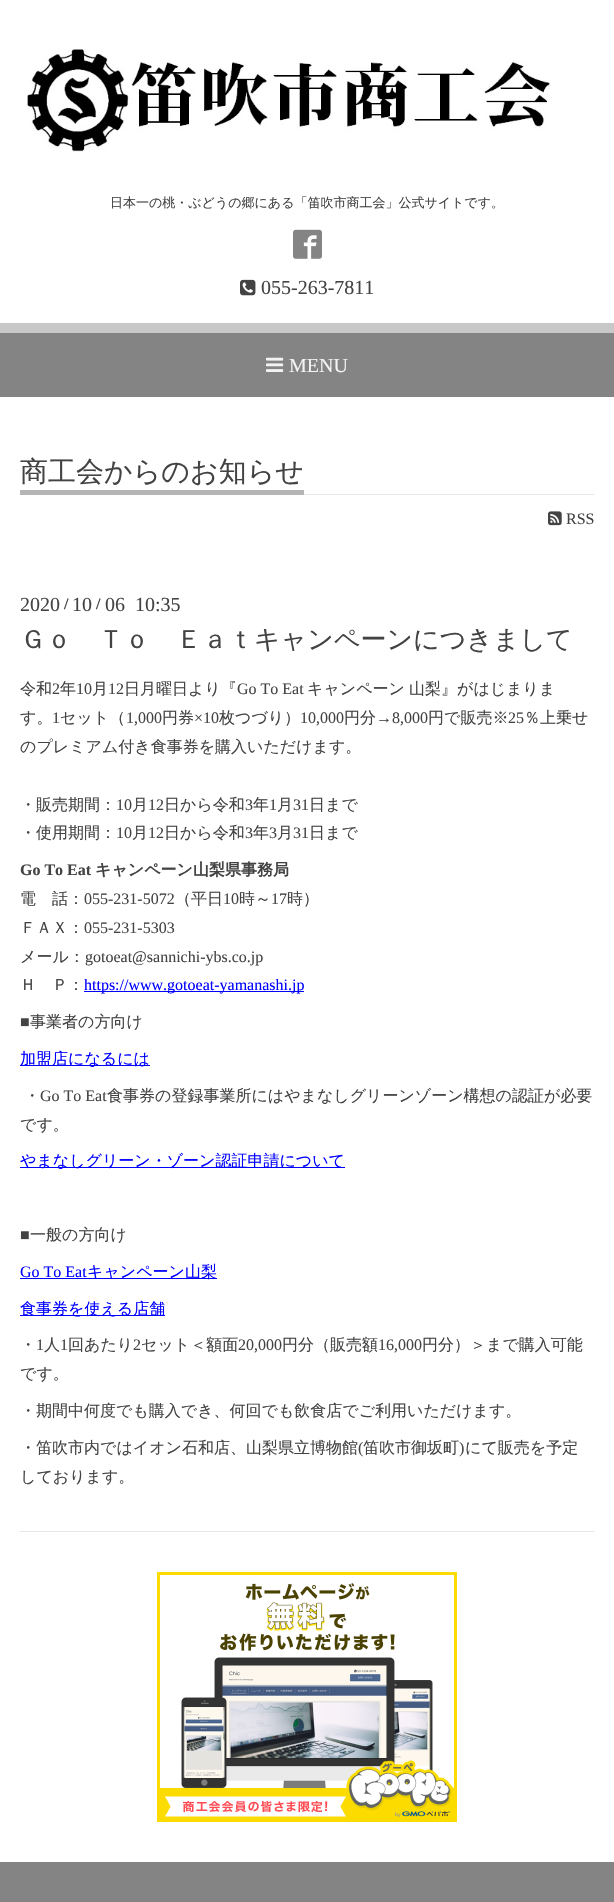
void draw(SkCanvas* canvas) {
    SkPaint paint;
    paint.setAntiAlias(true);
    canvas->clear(0xFFFFFFFF);
    canvas->drawImageRect(SkImages::DeferredFromEncodedData(SkData::MakeFromFileName("img1.png")), SkRect::MakeXYWH(27, 49, 523, 103), SkSamplingOptions());
    SkFont font1(fontMgr->matchFamilyStyle("WenQuanYi Zen Hei", SkFontStyle(500, SkFontStyle::kNormal_Width, SkFontStyle::kUpright_Slant)), 13);
    font1.setSubpixel(true);
    paint.setColor(0xFF434343);
    canvas->drawString("日本一の桃・ぶどうの郷にある「笛吹市商工会」公式サイトです。", 110, 207, font1, paint);
    canvas->drawImageRect(SkImages::DeferredFromEncodedData(SkData::MakeFromFileName("img2.png")), SkRect::MakeXYWH(293, 229, 29, 30), SkSamplingOptions());
    canvas->drawImageRect(SkImages::DeferredFromEncodedData(SkData::MakeFromFileName("img3.png")), SkRect::MakeXYWH(240, 279, 16, 17), SkSamplingOptions());
    SkFont font2(fontMgr->matchFamilyStyle("Liberation Serif", SkFontStyle::Normal()), 20);
    font2.setSubpixel(true);
    canvas->drawString("055-263-7811", 261, 294, font2, paint);
    paint.setColor(0xFFC8C8C8);
    canvas->drawRect(SkRect::MakeXYWH(0, 323, 614, 10), paint);
    paint.setColor(0xFF848484);
    canvas->drawRect(SkRect::MakeXYWH(0, 333, 614, 64), paint);
    canvas->drawImageRect(SkImages::DeferredFromEncodedData(SkData::MakeFromFileName("img4.png")), SkRect::MakeXYWH(266, 357, 18, 15), SkSamplingOptions());
    paint.setColor(0xFFF3F3F3);
    canvas->drawString("MENU", 289, 372, font2, paint);
    paint.setColor(0xFFE6E6E6);
    canvas->drawRect(SkRect::MakeXYWH(304, 494, 290, 1), paint);
    paint.setColor(0xFFB5B5B5);
    canvas->drawRect(SkRect::MakeXYWH(20, 490, 284, 5), paint);
    SkFont font3(fontMgr->matchFamilyStyle("WenQuanYi Zen Hei", SkFontStyle(500, SkFontStyle::kNormal_Width, SkFontStyle::kUpright_Slant)), 28);
    font3.setSubpixel(true);
    paint.setColor(0xFF434343);
    canvas->drawString("商工会からのお知らせ", 20, 481, font3, paint);
    canvas->drawImageRect(SkImages::DeferredFromEncodedData(SkData::MakeFromFileName("img5.png")), SkRect::MakeXYWH(548, 511, 14, 15), SkSamplingOptions());
    SkFont font4(fontMgr->matchFamilyStyle("Liberation Serif", SkFontStyle::Normal()), 16);
    font4.setSubpixel(true);
    canvas->drawString("RSS", 566, 524, font4, paint);
    canvas->drawString("2020", 20, 611, font2, paint);
    SkFont font5(fontMgr->matchFamilyStyle("Liberation Serif", SkFontStyle::Bold()), 16);
    font5.setSubpixel(true);
    canvas->drawString("/", 64, 609, font5, paint);
    canvas->drawString("10", 72, 611, font2, paint);
    canvas->drawString("/", 96, 609, font5, paint);
    canvas->drawString("06  10:35", 105, 611, font2, paint);
    SkFont font6(fontMgr->matchFamilyStyle("WenQuanYi Zen Hei", SkFontStyle(500, SkFontStyle::kNormal_Width, SkFontStyle::kUpright_Slant)), 26);
    font6.setSubpixel(true);
    canvas->drawString("Ｇｏ　Ｔｏ　Ｅａｔキャンペーンにつきまして", 20, 648, font6, paint);
    SkFont font7(fontMgr->matchFamilyStyle("WenQuanYi Zen Hei", SkFontStyle(500, SkFontStyle::kNormal_Width, SkFontStyle::kUpright_Slant)), 16);
    font7.setSubpixel(true);
    canvas->drawString("令和", 20, 694, font7, paint);
    canvas->drawString("2", 52, 694, font4, paint);
    canvas->drawString("年", 60, 694, font7, paint);
    canvas->drawString("10", 76, 694, font4, paint);
    canvas->drawString("月", 92, 694, font7, paint);
    canvas->drawString("12", 108, 694, font4, paint);
    canvas->drawString("日月曜日より『", 124, 694, font7, paint);
    canvas->drawString("Go To Eat", 237, 694, font4, paint);
    canvas->drawString("キャンペーン", 307, 694, font7, paint);
    canvas->drawString("山梨』がはじまりま", 409, 694, font7, paint);
    canvas->drawString("す。", 20, 723, font7, paint);
    canvas->drawString("1", 52, 723, font4, paint);
    canvas->drawString("セット（", 60, 723, font7, paint);
    canvas->drawString("1,000", 126, 723, font4, paint);
    canvas->drawString("円券", 162, 723, font7, paint);
    canvas->drawString("×10", 194, 723, font4, paint);
    canvas->drawString("枚つづり）", 219, 723, font7, paint);
    canvas->drawString("10,000", 300, 723, font4, paint);
    canvas->drawString("円分", 344, 723, font7, paint);
    canvas->drawString("→8,000", 376, 723, font4, paint);
    canvas->drawString("円で販売※", 428, 723, font7, paint);
    canvas->drawString("25", 508, 723, font4, paint);
    canvas->drawString("％上乗せ", 524, 723, font7, paint);
    canvas->drawString("のプレミアム付き食事券を購入いただけます。", 20, 752, font7, paint);
    canvas->drawString("・販売期間：", 20, 810, font7, paint);
    canvas->drawString("10", 116, 810, font4, paint);
    canvas->drawString("月", 132, 810, font7, paint);
    canvas->drawString("12", 148, 810, font4, paint);
    canvas->drawString("日から令和", 164, 810, font7, paint);
    canvas->drawString("3", 245, 810, font4, paint);
    canvas->drawString("年", 253, 810, font7, paint);
    canvas->drawString("1", 269, 810, font4, paint);
    canvas->drawString("月", 277, 810, font7, paint);
    canvas->drawString("31", 293, 810, font4, paint);
    canvas->drawString("日まで", 309, 810, font7, paint);
    canvas->drawString("・使用期間：", 20, 838, font7, paint);
    canvas->drawString("10", 116, 838, font4, paint);
    canvas->drawString("月", 132, 838, font7, paint);
    canvas->drawString("12", 148, 838, font4, paint);
    canvas->drawString("日から令和", 164, 838, font7, paint);
    canvas->drawString("3", 245, 838, font4, paint);
    canvas->drawString("年", 253, 838, font7, paint);
    canvas->drawString("3", 269, 838, font4, paint);
    canvas->drawString("月", 277, 838, font7, paint);
    canvas->drawString("31", 293, 838, font4, paint);
    canvas->drawString("日まで", 309, 838, font7, paint);
    canvas->drawString("Go To Eat", 20, 875, font5, paint);
    SkFont font8(fontMgr->matchFamilyStyle("WenQuanYi Zen Hei", SkFontStyle::Bold()), 16);
    font8.setSubpixel(true);
    canvas->drawString("キャンペーン山梨県事務局", 95, 875, font8, paint);
    canvas->drawString("電　話：", 20, 904, font7, paint);
    canvas->drawString("055-231-5072", 84, 904, font4, paint);
    canvas->drawString("（平日", 175, 904, font7, paint);
    canvas->drawString("10", 223, 904, font4, paint);
    canvas->drawString("時～", 239, 904, font7, paint);
    canvas->drawString("17", 271, 904, font4, paint);
    canvas->drawString("時）", 287, 904, font7, paint);
    canvas->drawString("ＦＡＸ：", 20, 933, font7, paint);
    canvas->drawString("055-231-5303", 84, 933, font4, paint);
    canvas->drawString("メール：", 20, 962, font7, paint);
    canvas->drawString("gotoeat@sannichi-ybs.co.jp", 85, 962, font4, paint);
    canvas->drawString("Ｈ　Ｐ：", 20, 990, font7, paint);
    paint.setColor(0xFF0000FF);
    canvas->drawRect(SkRect::MakeXYWH(84, 991, 220, 1), paint);
    canvas->drawString("https://www.gotoeat-yamanashi.jp", 84, 990, font4, paint);
    paint.setColor(0xFF434343);
    canvas->drawString("■", 20, 1027, font4, paint);
    canvas->drawString("事業者の方向け", 30, 1027, font7, paint);
    paint.setColor(0xFF0000FF);
    canvas->drawRect(SkRect::MakeXYWH(20, 1065, 130, 1), paint);
    canvas->drawString("加盟店になるには", 20, 1064, font7, paint);
    paint.setColor(0xFF434343);
    canvas->drawString("・", 24, 1101, font7, paint);
    canvas->drawString("Go To Eat", 40, 1101, font4, paint);
    canvas->drawString("食事券の登録事業所にはやまなしグリーンゾーン構想の認証が必要", 107, 1101, font7, paint);
    canvas->drawString("です。", 20, 1130, font7, paint);
    paint.setColor(0xFF0000FF);
    canvas->drawRect(SkRect::MakeXYWH(20, 1167, 325, 1), paint);
    canvas->drawString("やまなしグリーン・ゾーン認証申請について", 20, 1166, font7, paint);
    paint.setColor(0xFF434343);
    canvas->drawString("■", 20, 1240, font4, paint);
    canvas->drawString("一般の方向け", 30, 1240, font7, paint);
    paint.setColor(0xFF0000FF);
    canvas->drawString("Go To Eat", 20, 1277, font4, paint);
    canvas->drawRect(SkRect::MakeXYWH(20, 1278, 197, 1), paint);
    canvas->drawString("キャンペーン山梨", 87, 1277, font7, paint);
    canvas->drawRect(SkRect::MakeXYWH(20, 1315, 145, 1), paint);
    canvas->drawString("食事券を使える店舗", 20, 1314, font7, paint);
    paint.setColor(0xFF434343);
    canvas->drawString("・", 20, 1350, font7, paint);
    canvas->drawString("1", 36, 1350, font4, paint);
    canvas->drawString("人", 44, 1350, font7, paint);
    canvas->drawString("1", 60, 1350, font4, paint);
    canvas->drawString("回あたり", 68, 1350, font7, paint);
    canvas->drawString("2", 133, 1350, font4, paint);
    canvas->drawString("セット＜額面", 141, 1350, font7, paint);
    canvas->drawString("20,000", 238, 1350, font4, paint);
    canvas->drawString("円分（販売額", 282, 1350, font7, paint);
    canvas->drawString("16,000", 378, 1350, font4, paint);
    canvas->drawString("円分）＞まで購入可能", 422, 1350, font7, paint);
    canvas->drawString("です。", 20, 1379, font7, paint);
    canvas->drawString("・期間中何度でも購入でき、何回でも飲食店でご利用いただけます。", 20, 1416, font7, paint);
    canvas->drawString("・笛吹市内ではイオン石和店、山梨県立博物館", 20, 1453, font7, paint);
    canvas->drawString("(", 358, 1453, font4, paint);
    canvas->drawString("笛吹市御坂町", 363, 1453, font7, paint);
    canvas->drawString(")", 459, 1453, font4, paint);
    canvas->drawString("にて販売を予定", 465, 1453, font7, paint);
    canvas->drawString("しております。", 20, 1482, font7, paint);
    paint.setColor(0xFFE6E6E6);
    canvas->drawRect(SkRect::MakeXYWH(20, 1531, 574, 1), paint);
    canvas->drawImageRect(SkImages::DeferredFromEncodedData(SkData::MakeFromFileName("img6.png")), SkRect::MakeXYWH(157, 1572, 300, 250), SkSamplingOptions());
    paint.setColor(0xFF848484);
    canvas->drawRect(SkRect::MakeXYWH(0, 1862, 614, 40), paint);
}
